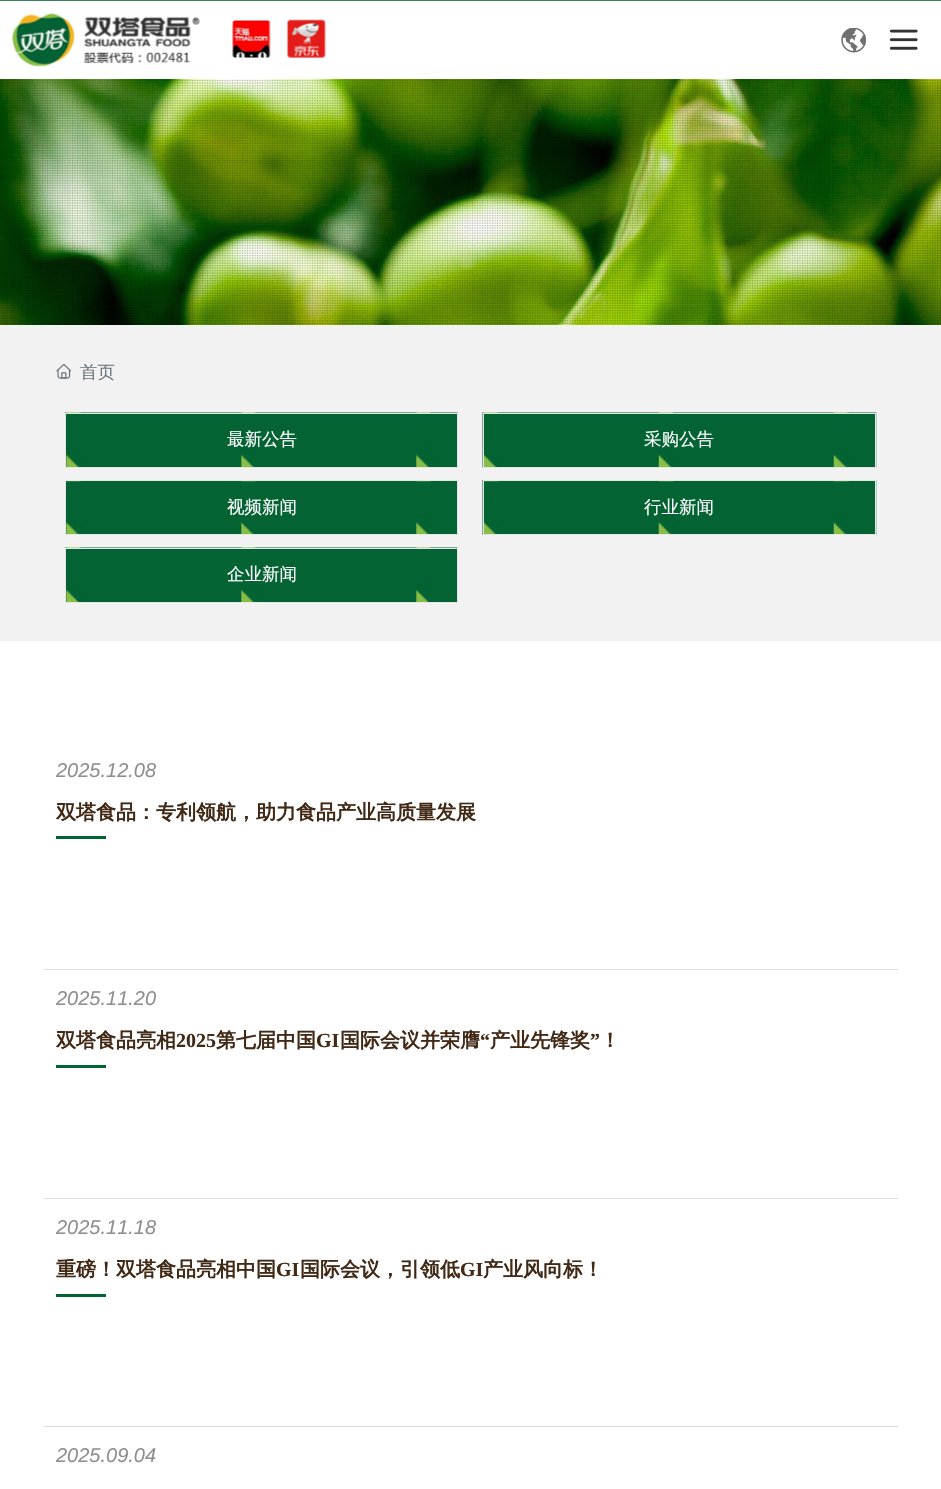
void draw(SkCanvas* canvas) {
    SkPaint paint;
    paint.setAntiAlias(true);
    canvas->clear(0xFFFFFFFF);
    paint.setColor(0xFF35825D);
    canvas->drawRect(SkRect::MakeXYWH(0, 0, 941, 1), paint);
    canvas->drawImageRect(SkImages::DeferredFromEncodedData(SkData::MakeFromFileName("img1.png")), SkRect::MakeXYWH(12, 13, 188, 54), SkSamplingOptions());
    canvas->drawImageRect(SkImages::DeferredFromEncodedData(SkData::MakeFromFileName("img2.png")), SkRect::MakeXYWH(232, 20, 39, 38), SkSamplingOptions());
    canvas->drawImageRect(SkImages::DeferredFromEncodedData(SkData::MakeFromFileName("img3.png")), SkRect::MakeXYWH(287, 19, 39, 39), SkSamplingOptions());
    canvas->drawImageRect(SkImages::DeferredFromEncodedData(SkData::MakeFromFileName("img4.png")), SkRect::MakeXYWH(841, 28, 25, 25), SkSamplingOptions());
    canvas->drawImageRect(SkImages::DeferredFromEncodedData(SkData::MakeFromFileName("img5.png")), SkRect::MakeXYWH(889, 29, 29, 21), SkSamplingOptions());
    canvas->drawImageRect(SkImages::DeferredFromEncodedData(SkData::MakeFromFileName("img6.png")), SkRect::MakeXYWH(0, 79, 941, 246), SkSamplingOptions());
    paint.setColor(0xFFF2F2F2);
    canvas->drawRect(SkRect::MakeXYWH(0, 325, 941, 316), paint);
    canvas->drawImageRect(SkImages::DeferredFromEncodedData(SkData::MakeFromFileName("img7.png")), SkRect::MakeXYWH(56, 364, 15, 15), SkSamplingOptions());
    SkFont font1(fontMgr->matchFamilyStyle("WenQuanYi Zen Hei", SkFontStyle(500, SkFontStyle::kNormal_Width, SkFontStyle::kUpright_Slant)), 17.5f);
    font1.setSubpixel(true);
    paint.setColor(0xFF6C757D);
    canvas->drawString("首页", 80, 378, font1, paint);
    canvas->drawImageRect(SkImages::DeferredFromEncodedData(SkData::MakeFromFileName("img8.png")), SkRect::MakeXYWH(65, 412, 393, 55), SkSamplingOptions());
    paint.setStyle(SkPaint::kStroke_Style);
    paint.setStrokeWidth(1);
    paint.setColor(0xFFE5E5E5);
    canvas->drawRect(SkRect::MakeXYWH(65.5f, 413.5f, 392, 54), paint);
    paint.setStyle(SkPaint::kFill_Style);
    paint.setColor(0xFFFFFFFF);
    canvas->drawString("最新公告", 227, 445, font1, paint);
    canvas->drawImageRect(SkImages::DeferredFromEncodedData(SkData::MakeFromFileName("img9.png")), SkRect::MakeXYWH(482, 412, 395, 56), SkSamplingOptions());
    paint.setStyle(SkPaint::kStroke_Style);
    paint.setColor(0xFFE5E5E5);
    canvas->drawRect(SkRect::MakeXYWH(483.5f, 413.5f, 392, 54), paint);
    paint.setStyle(SkPaint::kFill_Style);
    paint.setColor(0xFFFFFFFF);
    canvas->drawString("采购公告", 644, 445, font1, paint);
    canvas->drawImageRect(SkImages::DeferredFromEncodedData(SkData::MakeFromFileName("img10.png")), SkRect::MakeXYWH(66, 481, 391, 53), SkSamplingOptions());
    paint.setStyle(SkPaint::kStroke_Style);
    paint.setColor(0xFFE5E5E5);
    canvas->drawRect(SkRect::MakeXYWH(65.5f, 480.5f, 392, 54), paint);
    paint.setStyle(SkPaint::kFill_Style);
    paint.setColor(0xFFFFFFFF);
    canvas->drawString("视频新闻", 227, 513, font1, paint);
    canvas->drawImageRect(SkImages::DeferredFromEncodedData(SkData::MakeFromFileName("img11.png")), SkRect::MakeXYWH(482, 480, 395, 55), SkSamplingOptions());
    paint.setStyle(SkPaint::kStroke_Style);
    paint.setColor(0xFFE5E5E5);
    canvas->drawRect(SkRect::MakeXYWH(483.5f, 480.5f, 392, 54), paint);
    paint.setStyle(SkPaint::kFill_Style);
    paint.setColor(0xFFFFFFFF);
    canvas->drawString("行业新闻", 644, 513, font1, paint);
    canvas->drawImageRect(SkImages::DeferredFromEncodedData(SkData::MakeFromFileName("img8.png")), SkRect::MakeXYWH(65, 547, 393, 55), SkSamplingOptions());
    paint.setStyle(SkPaint::kStroke_Style);
    paint.setColor(0xFFE5E5E5);
    canvas->drawRect(SkRect::MakeXYWH(65.5f, 548.5f, 392, 54), paint);
    paint.setStyle(SkPaint::kFill_Style);
    paint.setColor(0xFFFFFFFF);
    canvas->drawString("企业新闻", 227, 580, font1, paint);
    paint.setColor(0xFFDDDDDD);
    canvas->drawRect(SkRect::MakeXYWH(44, 969, 854, 1), paint);
    SkFont font2(fontMgr->matchFamilyStyle("Liberation Sans", SkFontStyle::Italic()), 20);
    font2.setSubpixel(true);
    paint.setColor(0xFF8F8F8F);
    canvas->drawString("2025.12.08", 56, 777, font2, paint);
    SkFont font3(fontMgr->matchFamilyStyle("WenQuanYi Zen Hei", SkFontStyle::Bold()), 20);
    font3.setSubpixel(true);
    paint.setColor(0xFF412915);
    canvas->drawString("双塔食品：专利领航，助力食品产业高质量发展", 56, 819, font3, paint);
    paint.setColor(0xFF036333);
    canvas->drawRect(SkRect::MakeXYWH(56, 836, 50, 3), paint);
    paint.setColor(0xFFDDDDDD);
    canvas->drawRect(SkRect::MakeXYWH(44, 1198, 854, 1), paint);
    paint.setColor(0xFF8F8F8F);
    canvas->drawString("2025.11.20", 56, 1005, font2, paint);
    paint.setColor(0xFF412915);
    canvas->drawString("双塔食品亮相", 56, 1047, font3, paint);
    SkFont font4(fontMgr->matchFamilyStyle("Liberation Serif", SkFontStyle::Bold()), 20);
    font4.setSubpixel(true);
    canvas->drawString("2025", 176, 1047, font4, paint);
    canvas->drawString("第七届中国", 216, 1047, font3, paint);
    canvas->drawString("GI", 316, 1047, font4, paint);
    canvas->drawString("国际会议并荣膺", 340, 1047, font3, paint);
    canvas->drawString("“", 480, 1047, font4, paint);
    canvas->drawString("产业先锋奖", 490, 1047, font3, paint);
    canvas->drawString("”", 590, 1047, font4, paint);
    canvas->drawString("！", 600, 1047, font3, paint);
    paint.setColor(0xFF036333);
    canvas->drawRect(SkRect::MakeXYWH(56, 1065, 50, 3), paint);
    paint.setColor(0xFFDDDDDD);
    canvas->drawRect(SkRect::MakeXYWH(44, 1426, 854, 1), paint);
    paint.setColor(0xFF8F8F8F);
    canvas->drawString("2025.11.18", 56, 1234, font2, paint);
    paint.setColor(0xFF412915);
    canvas->drawString("重磅！双塔食品亮相中国", 56, 1276, font3, paint);
    canvas->drawString("GI", 276, 1276, font4, paint);
    canvas->drawString("国际会议，引领低", 300, 1276, font3, paint);
    canvas->drawString("GI", 460, 1276, font4, paint);
    canvas->drawString("产业风向标！", 483, 1276, font3, paint);
    paint.setColor(0xFF036333);
    canvas->drawRect(SkRect::MakeXYWH(56, 1294, 50, 3), paint);
    paint.setColor(0xFF8F8F8F);
    canvas->drawString("2025.09.04", 56, 1462, font2, paint);
}
